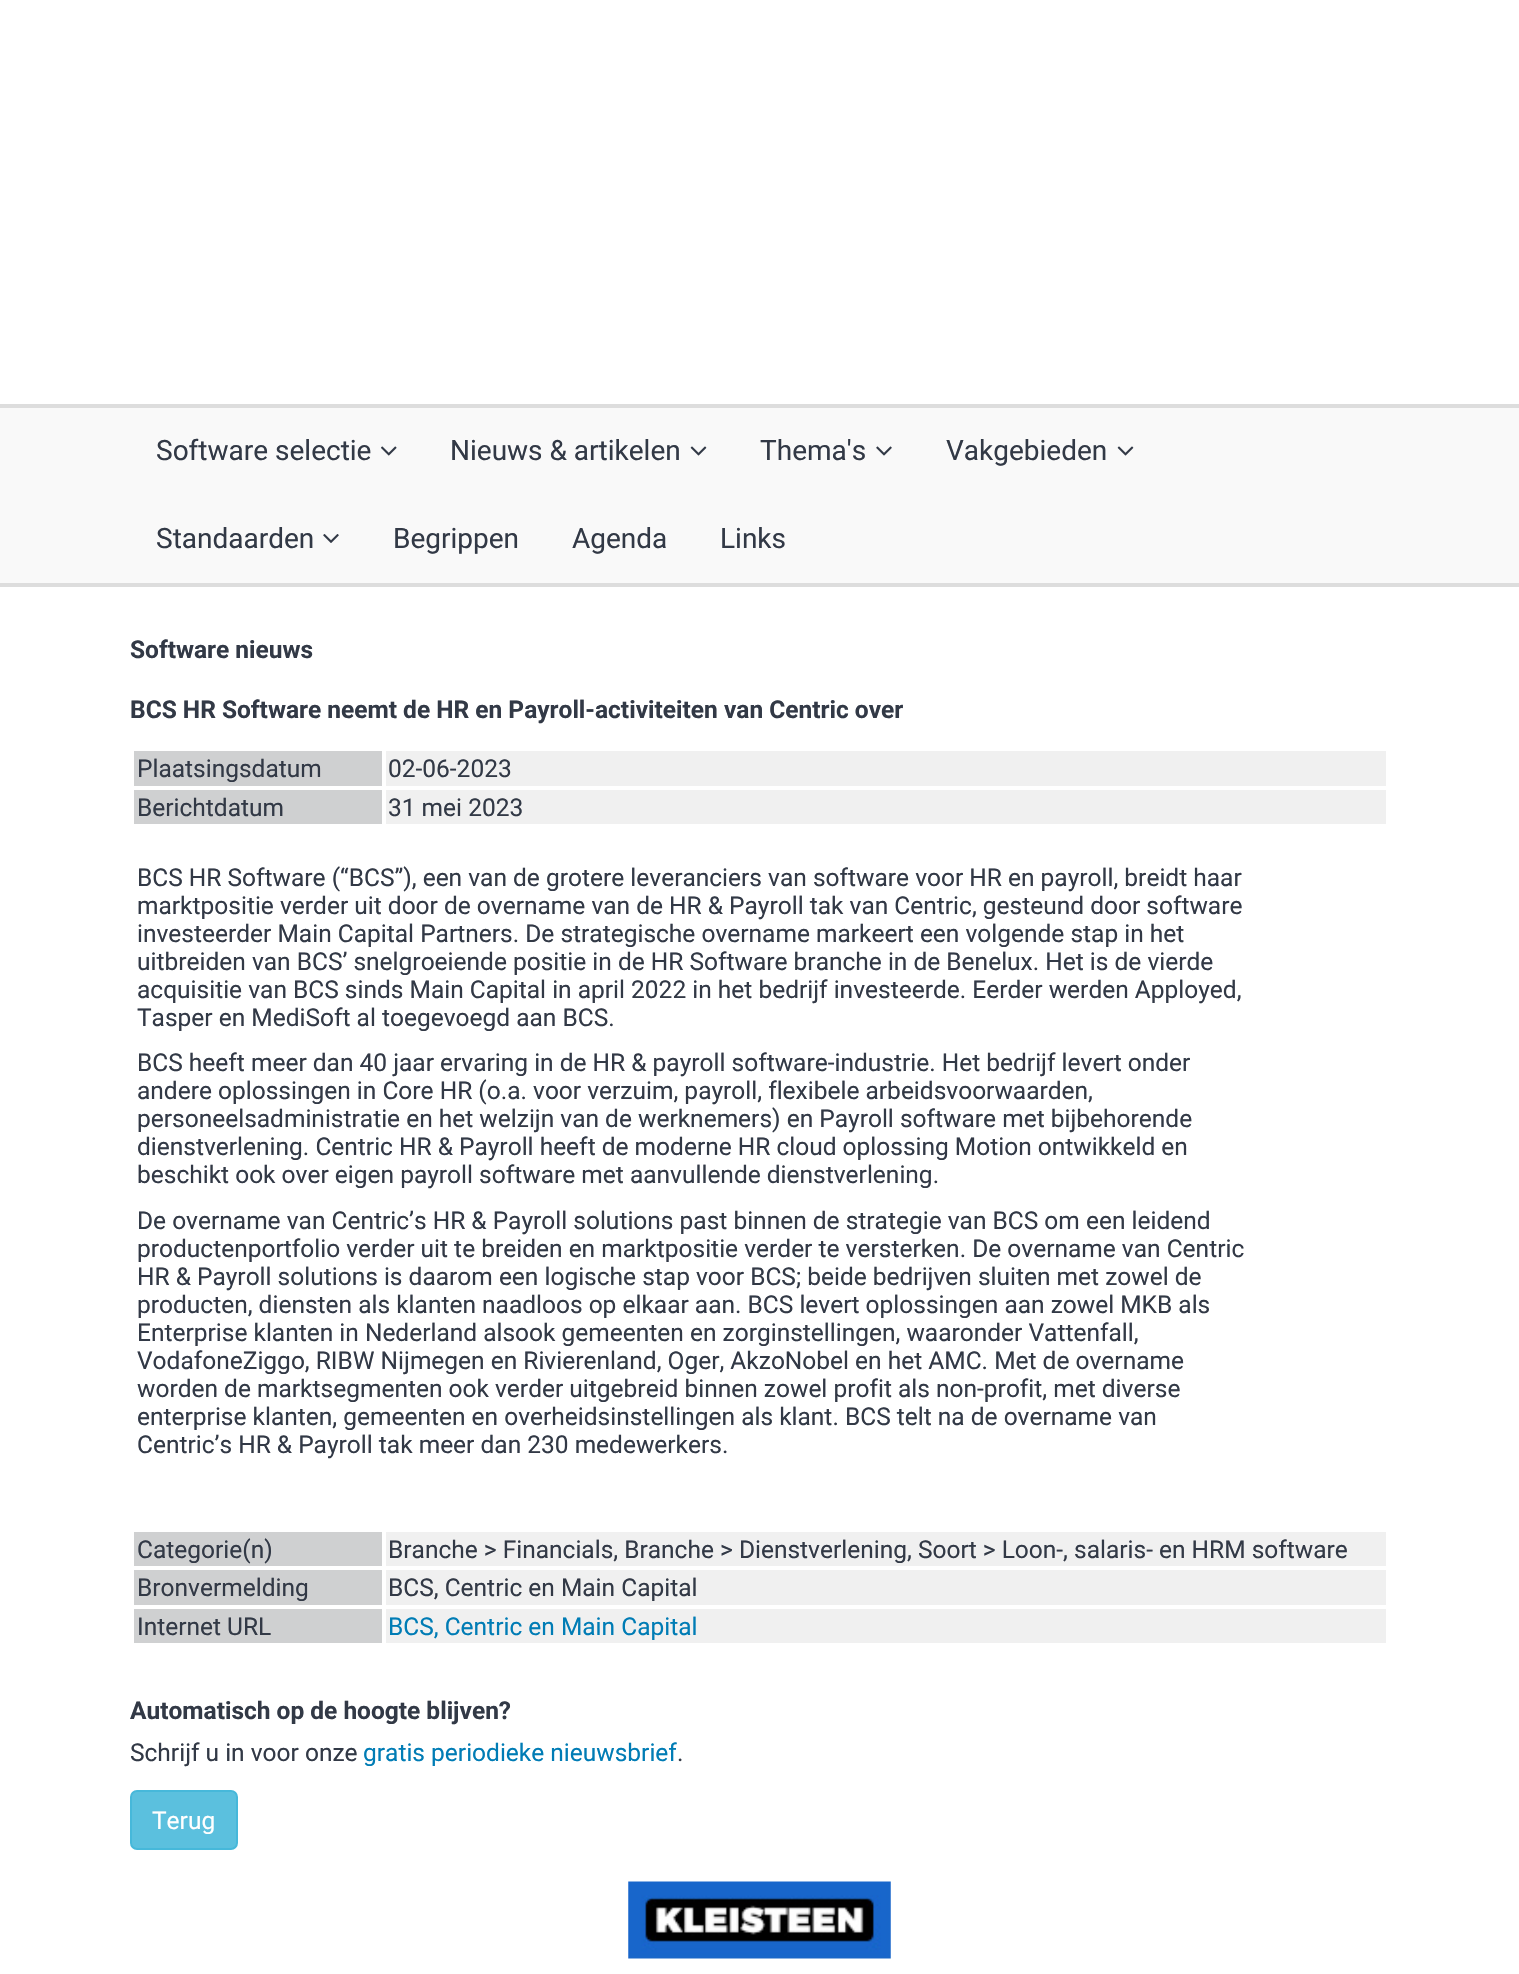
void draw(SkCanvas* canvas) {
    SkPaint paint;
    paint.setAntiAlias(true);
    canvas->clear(0xFFFFFFFF);
    paint.setColor(0xFFDDDDDD);
    canvas->drawRect(SkRect::MakeXYWH(0, 404, 1519, 4), paint);
    paint.setColor(0xFFF9F9F9);
    canvas->drawRect(SkRect::MakeXYWH(0, 408, 1519, 175), paint);
    paint.setColor(0xFFDDDDDD);
    canvas->drawRect(SkRect::MakeXYWH(0, 583, 1519, 4), paint);
    SkFont font1(fontMgr->matchFamilyStyle("Roboto", SkFontStyle::Normal()), 28);
    font1.setSubpixel(true);
    paint.setColor(0xFF323946);
    canvas->drawString("Software selectie", 156, 460, font1, paint);
    canvas->drawImageRect(SkImages::DeferredFromEncodedData(SkData::MakeFromFileName("img1.png")), SkRect::MakeXYWH(381, 446, 16, 10), SkSamplingOptions());
    canvas->drawString("Nieuws & artikelen", 450, 460, font1, paint);
    canvas->drawImageRect(SkImages::DeferredFromEncodedData(SkData::MakeFromFileName("img2.png")), SkRect::MakeXYWH(690, 446, 17, 10), SkSamplingOptions());
    canvas->drawString("Thema's", 760, 460, font1, paint);
    canvas->drawImageRect(SkImages::DeferredFromEncodedData(SkData::MakeFromFileName("img3.png")), SkRect::MakeXYWH(876, 446, 16, 10), SkSamplingOptions());
    canvas->drawString("Vakgebieden", 946, 460, font1, paint);
    canvas->drawImageRect(SkImages::DeferredFromEncodedData(SkData::MakeFromFileName("img2.png")), SkRect::MakeXYWH(1117, 446, 17, 10), SkSamplingOptions());
    canvas->drawString("Standaarden", 156, 548, font1, paint);
    canvas->drawImageRect(SkImages::DeferredFromEncodedData(SkData::MakeFromFileName("img4.png")), SkRect::MakeXYWH(323, 534, 16, 9), SkSamplingOptions());
    canvas->drawString("Begrippen", 393, 548, font1, paint);
    canvas->drawString("Agenda", 572, 548, font1, paint);
    canvas->drawString("Links", 720, 548, font1, paint);
    SkFont font2(fontMgr->matchFamilyStyle("Roboto", SkFontStyle::Bold()), 24.5f);
    font2.setSubpixel(true);
    canvas->drawString("Software nieuws", 130, 658, font2, paint);
    canvas->drawString("BCS HR Software neemt de HR en Payroll-activiteiten van Centric over", 130, 718, font2, paint);
    paint.setColor(0xFFCFD0D1);
    canvas->drawRect(SkRect::MakeXYWH(134, 751, 248, 35), paint);
    SkFont font3(fontMgr->matchFamilyStyle("Roboto", SkFontStyle::Normal()), 24.5f);
    font3.setSubpixel(true);
    paint.setColor(0xFF323946);
    canvas->drawString("Plaatsingsdatum", 137, 777, font3, paint);
    paint.setColor(0xFFF0F0F0);
    canvas->drawRect(SkRect::MakeXYWH(386, 751, 1000, 35), paint);
    paint.setColor(0xFF323946);
    canvas->drawString("02-06-2023", 388, 777, font3, paint);
    paint.setColor(0xFFCFD0D1);
    canvas->drawRect(SkRect::MakeXYWH(134, 790, 248, 34), paint);
    paint.setColor(0xFF323946);
    canvas->drawString("Berichtdatum", 137, 816, font3, paint);
    paint.setColor(0xFFF0F0F0);
    canvas->drawRect(SkRect::MakeXYWH(386, 790, 1000, 34), paint);
    paint.setColor(0xFF323946);
    canvas->drawString("31 mei 2023", 388, 816, font3, paint);
    canvas->drawString("BCS HR Software (“BCS”), een van de grotere leveranciers van software voor HR en payroll, breidt haar", 137, 886, font3, paint);
    canvas->drawString("marktpositie verder uit door de overname van de HR & Payroll tak van Centric, gesteund door software", 137, 914, font3, paint);
    canvas->drawString("investeerder Main Capital Partners. De strategische overname markeert een volgende stap in het", 137, 942, font3, paint);
    canvas->drawString("uitbreiden van BCS’ snelgroeiende positie in de HR Software branche in de Benelux. Het is de vierde", 137, 970, font3, paint);
    canvas->drawString("acquisitie van BCS sinds Main Capital in april 2022 in het bedrijf investeerde. Eerder werden Apployed,", 137, 998, font3, paint);
    canvas->drawString("Tasper en MediSoft al toegevoegd aan BCS.", 137, 1026, font3, paint);
    canvas->drawString("BCS heeft meer dan 40 jaar ervaring in de HR & payroll software-industrie. Het bedrijf levert onder", 137, 1071, font3, paint);
    canvas->drawString("andere oplossingen in Core HR (o.a. voor verzuim, payroll, flexibele arbeidsvoorwaarden,", 137, 1099, font3, paint);
    canvas->drawString("personeelsadministratie en het welzijn van de werknemers) en Payroll software met bijbehorende", 137, 1127, font3, paint);
    canvas->drawString("dienstverlening. Centric HR & Payroll heeft de moderne HR cloud oplossing Motion ontwikkeld en", 137, 1155, font3, paint);
    canvas->drawString("beschikt ook over eigen payroll software met aanvullende dienstverlening.", 137, 1183, font3, paint);
    canvas->drawString("De overname van Centric’s HR & Payroll solutions past binnen de strategie van BCS om een leidend", 137, 1229, font3, paint);
    canvas->drawString("productenportfolio verder uit te breiden en marktpositie verder te versterken. De overname van Centric", 137, 1257, font3, paint);
    canvas->drawString("HR & Payroll solutions is daarom een logische stap voor BCS; beide bedrijven sluiten met zowel de", 137, 1285, font3, paint);
    canvas->drawString("producten, diensten als klanten naadloos op elkaar aan. BCS levert oplossingen aan zowel MKB als", 137, 1313, font3, paint);
    canvas->drawString("Enterprise klanten in Nederland alsook gemeenten en zorginstellingen, waaronder Vattenfall,", 137, 1341, font3, paint);
    canvas->drawString("VodafoneZiggo, RIBW Nijmegen en Rivierenland, Oger, AkzoNobel en het AMC. Met de overname", 137, 1369, font3, paint);
    canvas->drawString("worden de marktsegmenten ook verder uitgebreid binnen zowel profit als non-profit, met diverse", 137, 1397, font3, paint);
    canvas->drawString("enterprise klanten, gemeenten en overheidsinstellingen als klant. BCS telt na de overname van", 137, 1425, font3, paint);
    canvas->drawString("Centric’s HR & Payroll tak meer dan 230 medewerkers.", 137, 1453, font3, paint);
    paint.setColor(0xFFCFD0D1);
    canvas->drawRect(SkRect::MakeXYWH(134, 1532, 248, 34), paint);
    paint.setColor(0xFF323946);
    canvas->drawString("Categorie(n)", 137, 1558, font3, paint);
    paint.setColor(0xFFF0F0F0);
    canvas->drawRect(SkRect::MakeXYWH(386, 1532, 1000, 34), paint);
    paint.setColor(0xFF323946);
    canvas->drawString("Branche > Financials, Branche > Dienstverlening, Soort > Loon-, salaris- en HRM software", 388, 1558, font3, paint);
    paint.setColor(0xFFCFD0D1);
    canvas->drawRect(SkRect::MakeXYWH(134, 1570, 248, 35), paint);
    paint.setColor(0xFF323946);
    canvas->drawString("Bronvermelding", 137, 1596, font3, paint);
    paint.setColor(0xFFF0F0F0);
    canvas->drawRect(SkRect::MakeXYWH(386, 1570, 1000, 35), paint);
    paint.setColor(0xFF323946);
    canvas->drawString("BCS, Centric en Main Capital", 388, 1596, font3, paint);
    paint.setColor(0xFFCFD0D1);
    canvas->drawRect(SkRect::MakeXYWH(134, 1609, 248, 34), paint);
    paint.setColor(0xFF323946);
    canvas->drawString("Internet URL", 137, 1635, font3, paint);
    paint.setColor(0xFFF0F0F0);
    canvas->drawRect(SkRect::MakeXYWH(386, 1609, 1000, 34), paint);
    paint.setColor(0xFF007CB5);
    canvas->drawString("BCS, Centric en Main Capital", 388, 1635, font3, paint);
    paint.setColor(0xFF323946);
    canvas->drawString("Automatisch op de hoogte blijven?", 130, 1719, font2, paint);
    canvas->drawString("Schrijf u in voor onze", 130, 1761, font3, paint);
    paint.setColor(0xFF007CB5);
    canvas->drawString("gratis periodieke nieuwsbrief", 363, 1761, font3, paint);
    paint.setColor(0xFF323946);
    canvas->drawString(".", 677, 1761, font3, paint);
    paint.setColor(0xFF5BC0DE);
    canvas->drawRoundRect(SkRect::MakeXYWH(131, 1791, 106, 58), 6, 6, paint);
    paint.setStyle(SkPaint::kStroke_Style);
    paint.setStrokeWidth(2);
    paint.setColor(0xFF46B8DA);
    canvas->drawRoundRect(SkRect::MakeXYWH(131, 1791, 106, 58), 6, 6, paint);
    paint.setStyle(SkPaint::kFill_Style);
    paint.setColor(0xFFFFFFFF);
    canvas->drawString("Terug", 152, 1829, font3, paint);
    canvas->drawImageRect(SkImages::DeferredFromEncodedData(SkData::MakeFromFileName("img5.png")), SkRect::MakeXYWH(628, 1881, 263, 78), SkSamplingOptions());
}
